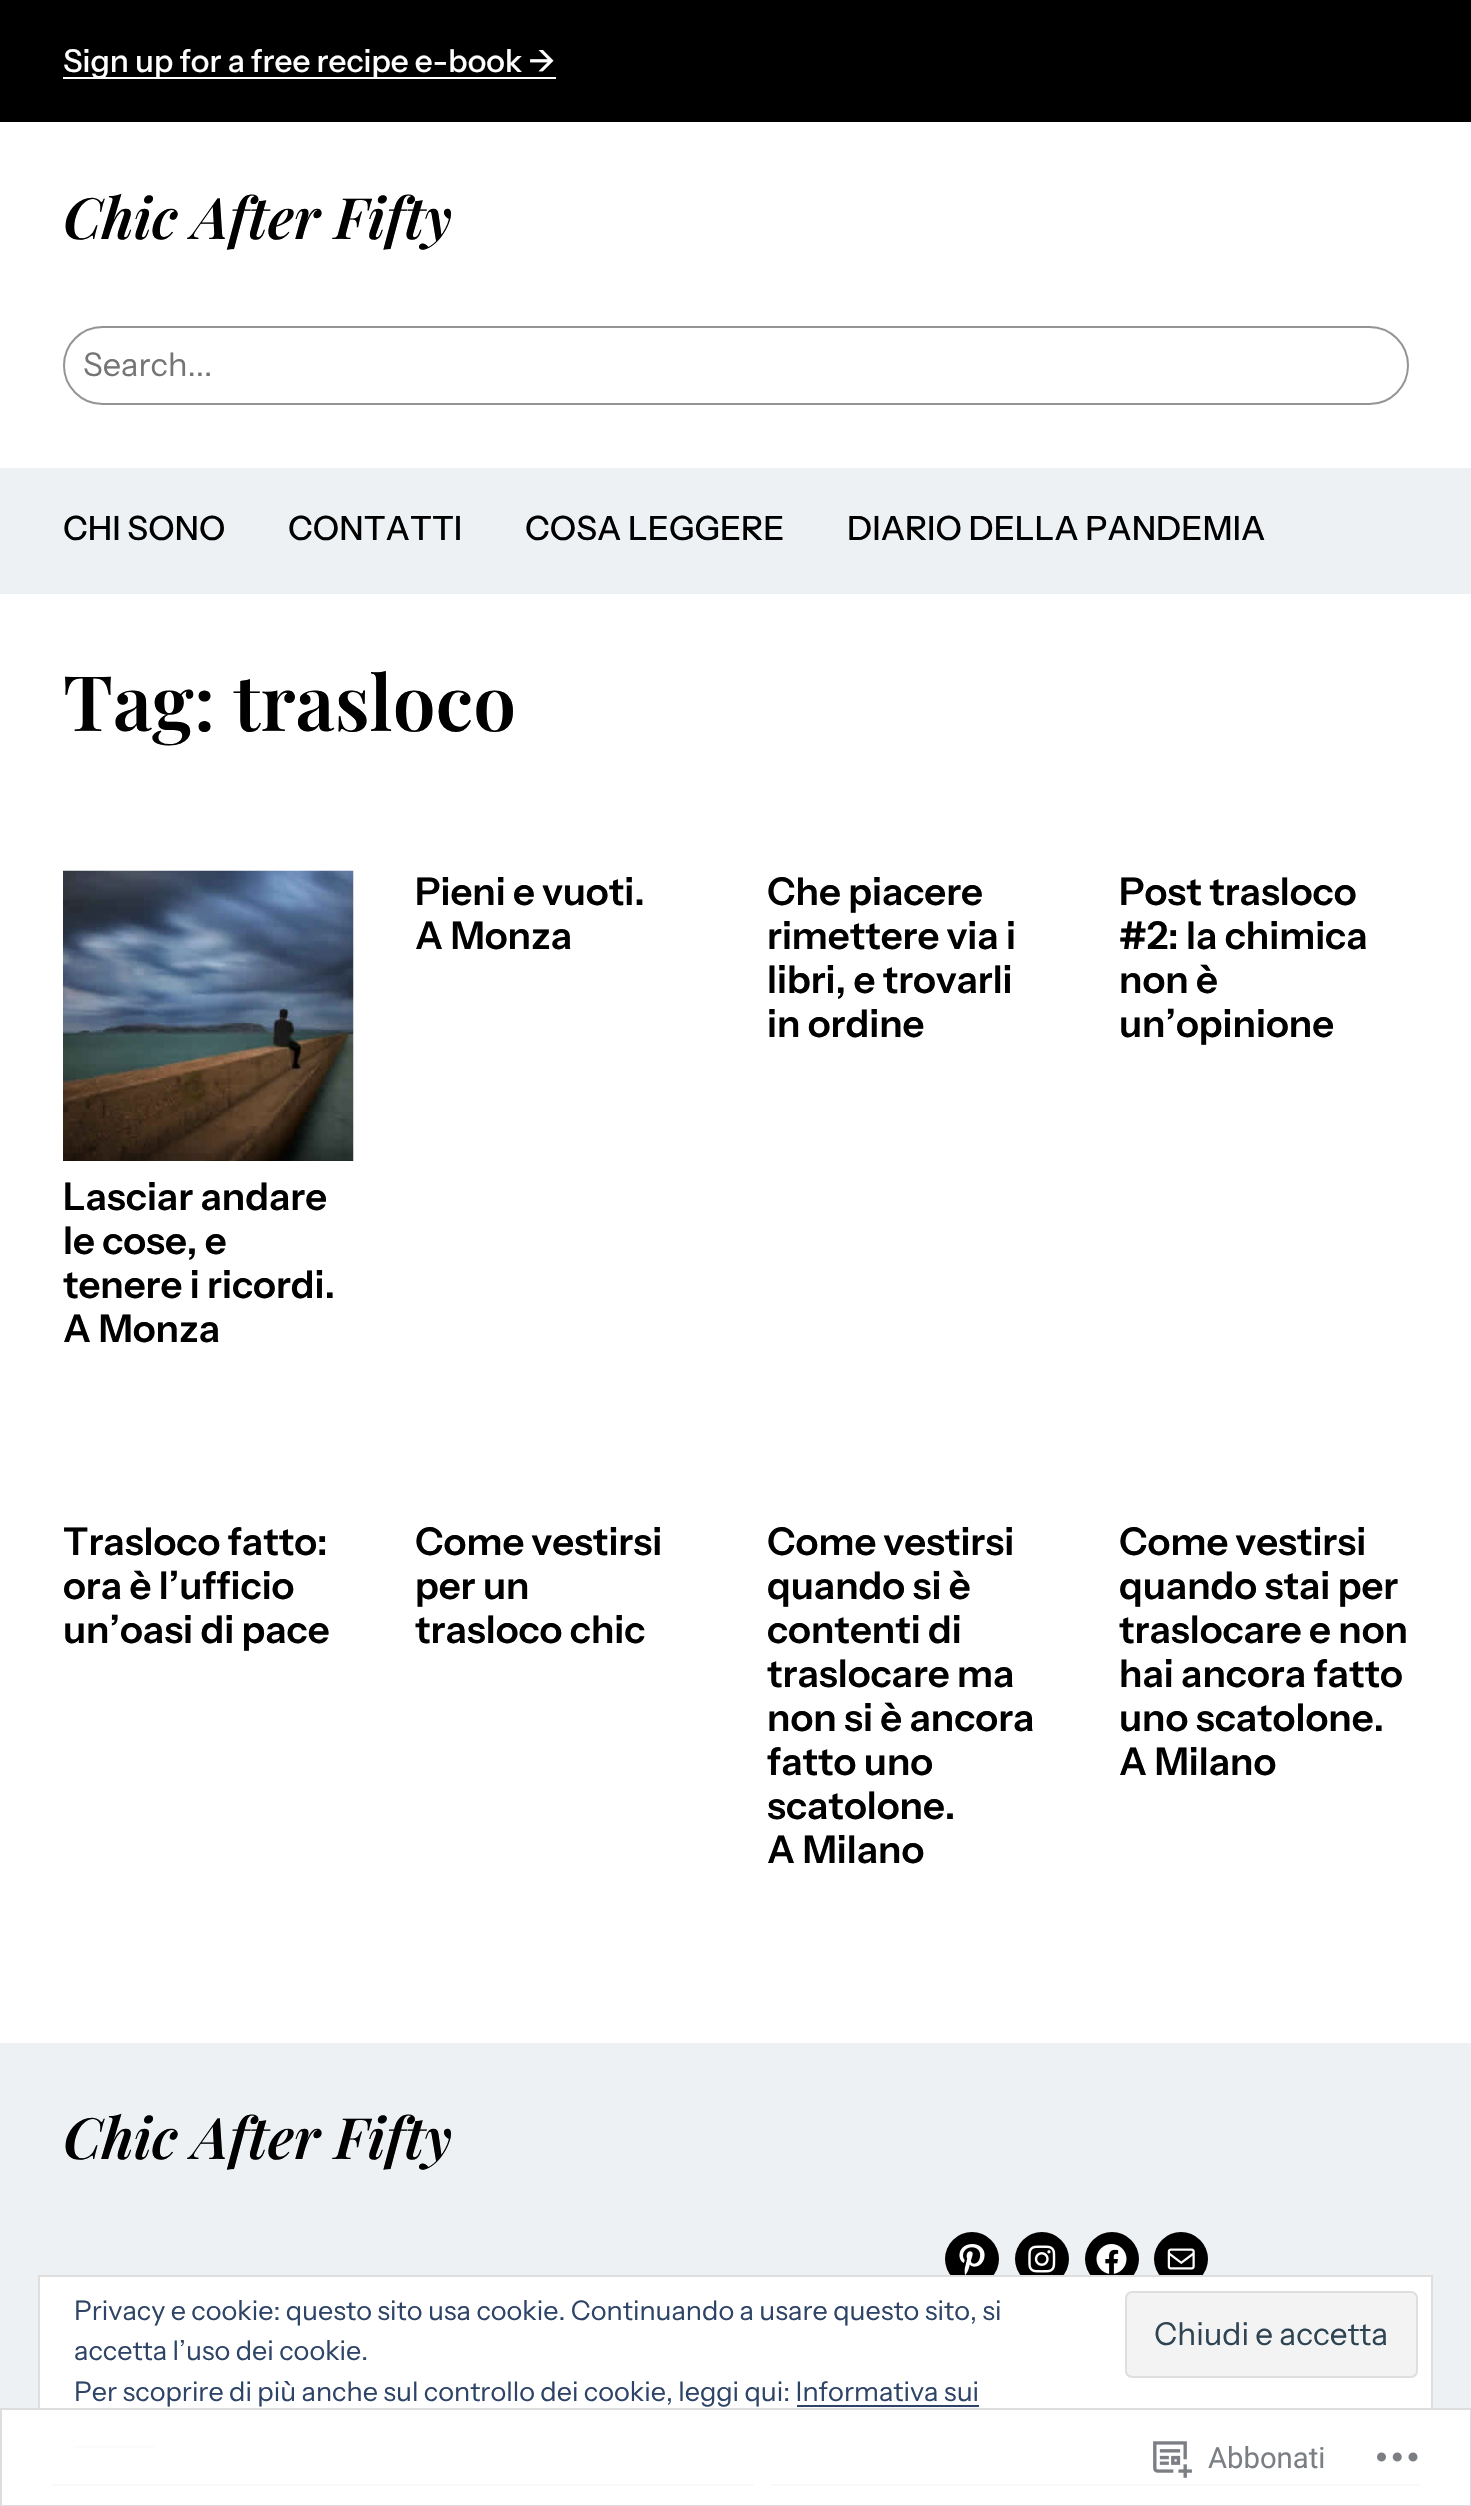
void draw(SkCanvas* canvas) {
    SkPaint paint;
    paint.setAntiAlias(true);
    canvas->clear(0xFFFFFFFF);
    paint.setColor(0xFF000000);
    canvas->drawRect(SkRect::MakeXYWH(0, 0, 1471, 122), paint);
    paint.setColor(0xFFFFFFFF);
    canvas->drawRect(SkRect::MakeXYWH(63, 77, 493, 2), paint);
    SkFont font1(fontMgr->matchFamilyStyle("Instrument Sans", SkFontStyle(500, SkFontStyle::kNormal_Width, SkFontStyle::kUpright_Slant)), 31.5f);
    font1.setSubpixel(true);
    canvas->drawString("Sign up for a free recipe e-book →", 63, 72, font1, paint);
    SkFont font2(fontMgr->matchFamilyStyle("Playfair Display", SkFontStyle(600, SkFontStyle::kNormal_Width, SkFontStyle::kItalic_Slant)), 57);
    font2.setSubpixel(true);
    paint.setColor(0xFF000000);
    canvas->drawString("Chic After Fifty", 63, 239, font2, paint);
    paint.setStyle(SkPaint::kStroke_Style);
    paint.setStrokeWidth(2);
    paint.setColor(0xFF949494);
    canvas->drawRoundRect(SkRect::MakeXYWH(64, 327, 1344, 77), 38.5f, 38.5f, paint);
    SkFont font3(fontMgr->matchFamilyStyle("Instrument Sans", SkFontStyle::Normal()), 32.5f);
    font3.setSubpixel(true);
    paint.setStyle(SkPaint::kFill_Style);
    paint.setColor(0xFF757575);
    canvas->drawString("Search...", 83, 376, font3, paint);
    paint.setColor(0xFFEDF1F4);
    canvas->drawRect(SkRect::MakeXYWH(0, 468, 1471, 126), paint);
    SkFont font4(fontMgr->matchFamilyStyle("Instrument Sans", SkFontStyle(500, SkFontStyle::kNormal_Width, SkFontStyle::kUpright_Slant)), 33.4f);
    font4.setSubpixel(true);
    paint.setColor(0xFF000000);
    canvas->drawString("CHI SONO", 63, 540, font4, paint);
    canvas->drawString("CONTATTI", 288, 540, font4, paint);
    canvas->drawString("COSA LEGGERE", 525, 540, font4, paint);
    canvas->drawString("DIARIO DELLA PANDEMIA", 847, 540, font4, paint);
    SkFont font5(fontMgr->matchFamilyStyle("Playfair Display", SkFontStyle(600, SkFontStyle::kNormal_Width, SkFontStyle::kUpright_Slant)), 76.5f);
    font5.setSubpixel(true);
    canvas->drawString("Tag: trasloco", 63, 731, font5, paint);
    SkFont font6(fontMgr->matchFamilyStyle("Instrument Sans", SkFontStyle(600, SkFontStyle::kNormal_Width, SkFontStyle::kUpright_Slant)), 38.25f);
    font6.setSubpixel(true);
    canvas->drawString("Pieni e vuoti.", 415, 905, font6, paint);
    canvas->drawString("A Monza", 415, 949, font6, paint);
    canvas->drawString("Che piacere", 767, 905, font6, paint);
    canvas->drawString("rimettere via i", 767, 949, font6, paint);
    canvas->drawString("libri, e trovarli", 767, 993, font6, paint);
    canvas->drawString("in ordine", 767, 1037, font6, paint);
    canvas->drawString("Post trasloco", 1119, 905, font6, paint);
    canvas->drawString("#2: la chimica", 1119, 949, font6, paint);
    canvas->drawString("non è", 1119, 993, font6, paint);
    canvas->drawString("un’opinione", 1119, 1037, font6, paint);
    canvas->drawImageRect(SkImages::DeferredFromEncodedData(SkData::MakeFromFileName("img1.png")), SkRect::MakeXYWH(63, 870, 291, 291), SkSamplingOptions());
    canvas->drawString("Lasciar andare", 63, 1210, font6, paint);
    canvas->drawString("le cose, e", 63, 1254, font6, paint);
    canvas->drawString("tenere i ricordi.", 63, 1298, font6, paint);
    canvas->drawString("A Monza", 63, 1342, font6, paint);
    canvas->drawString("Trasloco fatto:", 63, 1555, font6, paint);
    canvas->drawString("ora è l’ufficio", 63, 1599, font6, paint);
    canvas->drawString("un’oasi di pace", 63, 1643, font6, paint);
    canvas->drawString("Come vestirsi", 415, 1555, font6, paint);
    canvas->drawString("per un", 415, 1599, font6, paint);
    canvas->drawString("trasloco chic", 415, 1643, font6, paint);
    canvas->drawString("Come vestirsi", 767, 1555, font6, paint);
    canvas->drawString("quando si è", 767, 1599, font6, paint);
    canvas->drawString("contenti di", 767, 1643, font6, paint);
    canvas->drawString("traslocare ma", 767, 1687, font6, paint);
    canvas->drawString("non si è ancora", 767, 1731, font6, paint);
    canvas->drawString("fatto uno", 767, 1775, font6, paint);
    canvas->drawString("scatolone.", 767, 1819, font6, paint);
    canvas->drawString("A Milano", 767, 1863, font6, paint);
    canvas->drawString("Come vestirsi", 1119, 1555, font6, paint);
    canvas->drawString("quando stai per", 1119, 1599, font6, paint);
    canvas->drawString("traslocare e non", 1119, 1643, font6, paint);
    canvas->drawString("hai ancora fatto", 1119, 1687, font6, paint);
    canvas->drawString("uno scatolone.", 1119, 1731, font6, paint);
    canvas->drawString("A Milano", 1119, 1775, font6, paint);
    paint.setColor(0xFFEDF1F4);
    canvas->drawRect(SkRect::MakeXYWH(0, 2043, 1471, 374), paint);
    paint.setColor(0xFF000000);
    canvas->drawString("Chic After Fifty", 63, 2159, font2, paint);
    canvas->drawCircle(972, 2259, 27, paint);
    canvas->drawImageRect(SkImages::DeferredFromEncodedData(SkData::MakeFromFileName("img2.png")), SkRect::MakeXYWH(959, 2244, 26, 31), SkSamplingOptions());
    canvas->drawCircle(1042, 2259, 27, paint);
    canvas->drawImageRect(SkImages::DeferredFromEncodedData(SkData::MakeFromFileName("img3.png")), SkRect::MakeXYWH(1028, 2245, 28, 28), SkSamplingOptions());
    canvas->drawCircle(1112, 2259, 27, paint);
    canvas->drawImageRect(SkImages::DeferredFromEncodedData(SkData::MakeFromFileName("img4.png")), SkRect::MakeXYWH(1096, 2244, 31, 30), SkSamplingOptions());
    canvas->drawCircle(1181, 2259, 27, paint);
    canvas->drawImageRect(SkImages::DeferredFromEncodedData(SkData::MakeFromFileName("img5.png")), SkRect::MakeXYWH(1167, 2248, 28, 22), SkSamplingOptions());
    canvas->drawRect(SkRect::MakeXYWH(52, 2484, 702, 2), paint);
    canvas->drawRect(SkRect::MakeXYWH(770, 2484, 650, 2), paint);
    paint.setColor(0xFFFFFFFF);
    canvas->drawRect(SkRect::MakeXYWH(40, 2277, 1391, 140), paint);
    paint.setStyle(SkPaint::kStroke_Style);
    paint.setColor(0xFFDEDEDE);
    canvas->drawRect(SkRect::MakeXYWH(39, 2276, 1393, 191), paint);
    SkFont font7(fontMgr->matchFamilyStyle("Instrument Sans", SkFontStyle::Normal()), 27);
    font7.setSubpixel(true);
    paint.setStyle(SkPaint::kFill_Style);
    paint.setColor(0xFF2E4467);
    canvas->drawString("Privacy e cookie: questo sito usa cookie. Continuando a usare questo sito, si", 74, 2320, font7, paint);
    paint.setColor(0xFFF3F3F3);
    canvas->drawRoundRect(SkRect::MakeXYWH(1126, 2292, 291, 85), 6, 6, paint);
    paint.setStyle(SkPaint::kStroke_Style);
    paint.setColor(0xFFDEDEDE);
    canvas->drawRoundRect(SkRect::MakeXYWH(1126, 2292, 291, 85), 6, 6, paint);
    SkFont font8(fontMgr->matchFamilyStyle("Instrument Sans", SkFontStyle::Normal()), 31.5f);
    font8.setSubpixel(true);
    paint.setStyle(SkPaint::kFill_Style);
    paint.setColor(0xFF2E4453);
    canvas->drawString("Chiudi e accetta", 1154, 2345, font8, paint);
    paint.setColor(0xFF2E4467);
    canvas->drawString("accetta l’uso dei cookie.", 74, 2360, font7, paint);
    canvas->drawString("Per scoprire di più anche sul controllo dei cookie, leggi qui: Informativa sui", 74, 2401, font7, paint);
    canvas->drawRect(SkRect::MakeXYWH(797, 2405, 182, 2), paint);
    canvas->drawRect(SkRect::MakeXYWH(74, 2446, 81, 2), paint);
    paint.setColor(0xFAFFFFFF);
    canvas->drawRect(SkRect::MakeXYWH(2, 2410, 1468, 76), paint);
    paint.setStyle(SkPaint::kStroke_Style);
    paint.setColor(0xFFDDDDDF);
    canvas->drawRect(SkRect::MakeXYWH(1, 2409, 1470, 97), paint);
    canvas->drawImageRect(SkImages::DeferredFromEncodedData(SkData::MakeFromFileName("img6.png")), SkRect::MakeXYWH(1153, 2441, 39, 37), SkSamplingOptions());
    SkFont font9(fontMgr->matchFamilyStyle("Roboto", SkFontStyle::Normal()), 29.25f);
    font9.setSubpixel(true);
    paint.setStyle(SkPaint::kFill_Style);
    paint.setColor(0xFF7B7F84);
    canvas->drawString("Abbonati", 1208, 2468, font9, paint);
    canvas->drawImageRect(SkImages::DeferredFromEncodedData(SkData::MakeFromFileName("img7.png")), SkRect::MakeXYWH(1377, 2452, 41, 10), SkSamplingOptions());
}
